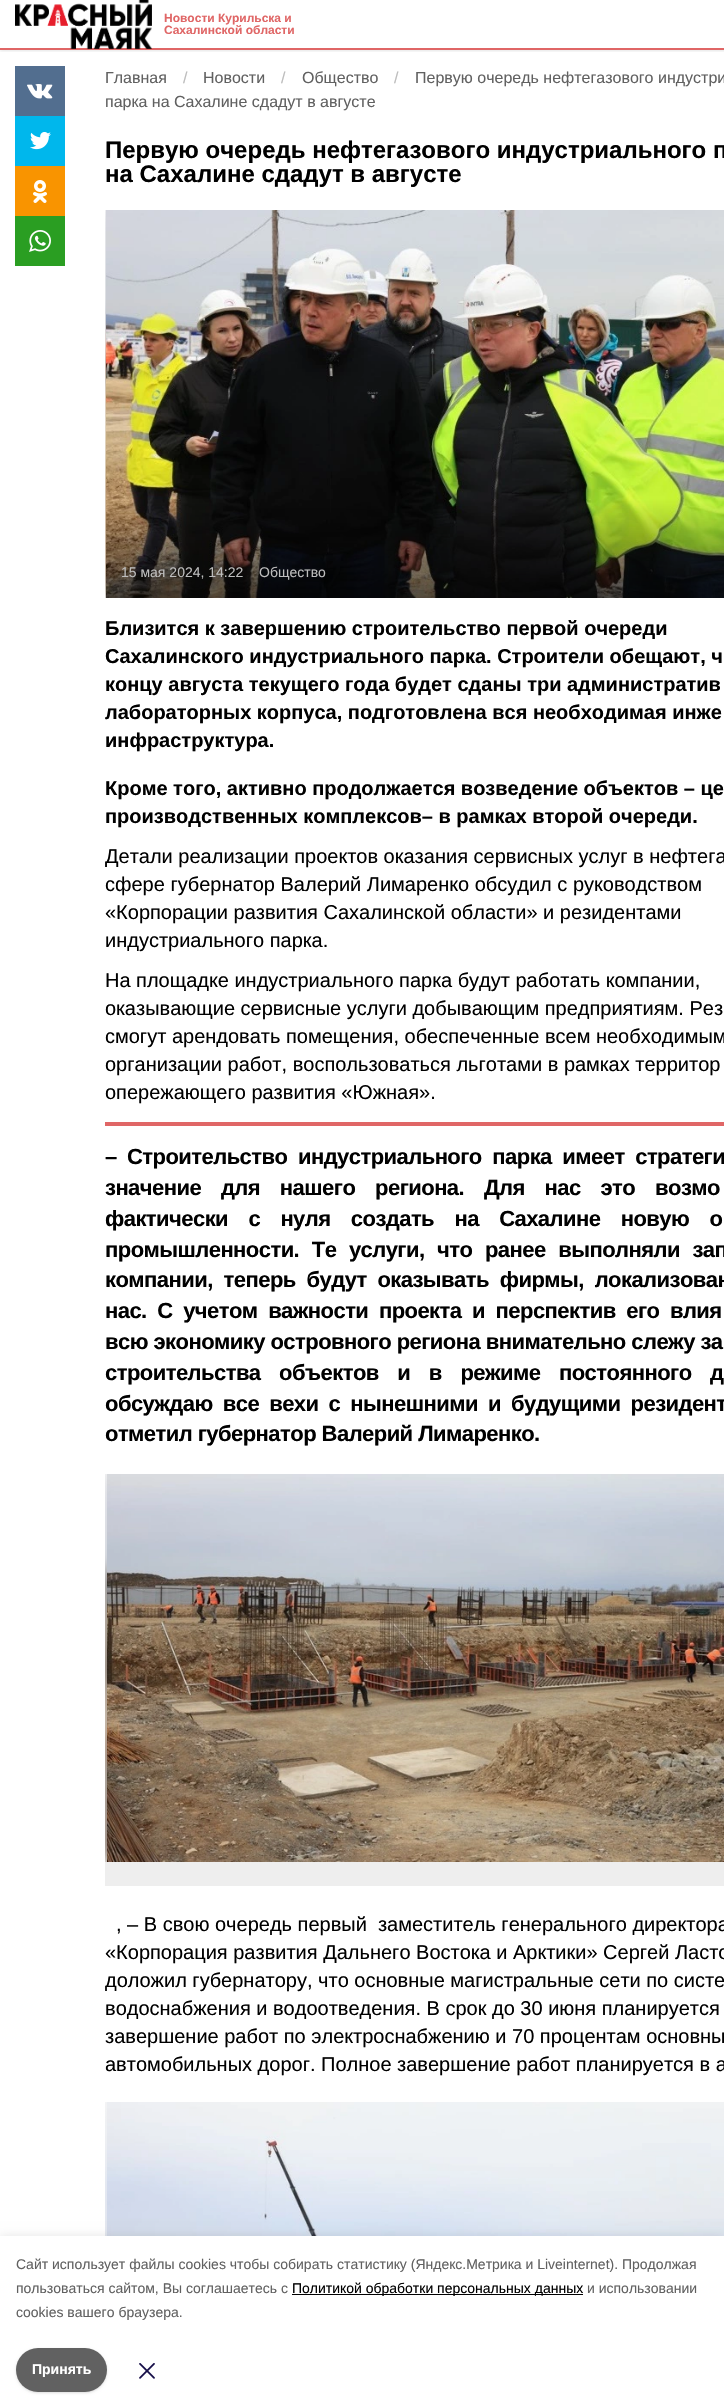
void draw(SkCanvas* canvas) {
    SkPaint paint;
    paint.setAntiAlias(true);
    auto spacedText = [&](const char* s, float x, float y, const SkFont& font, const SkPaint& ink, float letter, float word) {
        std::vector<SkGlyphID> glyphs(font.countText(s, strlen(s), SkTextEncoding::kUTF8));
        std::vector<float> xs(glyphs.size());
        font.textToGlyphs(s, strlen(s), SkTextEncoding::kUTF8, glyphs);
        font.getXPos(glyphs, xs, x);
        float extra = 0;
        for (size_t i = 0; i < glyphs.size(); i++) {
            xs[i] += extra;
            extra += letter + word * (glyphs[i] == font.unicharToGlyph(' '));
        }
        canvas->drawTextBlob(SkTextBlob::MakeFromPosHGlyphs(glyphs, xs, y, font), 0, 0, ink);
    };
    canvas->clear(0xFFFFFFFF);
    canvas->save();
    canvas->clipRect(SkRect::MakeXYWH(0, 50, 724, 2));
    paint.setColor(0x1A000000);
    paint.setMaskFilter(SkMaskFilter::MakeBlur(kNormal_SkBlurStyle, 1.5f));
    canvas->drawRect(SkRect::MakeXYWH(0, 1, 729, 50), paint);
    paint.setMaskFilter(nullptr);
    canvas->restore();
    paint.setColor(0xFFE06666);
    canvas->drawRect(SkRect::MakeXYWH(0, 48, 724, 2), paint);
    canvas->drawImageRect(SkImages::DeferredFromEncodedData(SkData::MakeFromFileName("img1.png")), SkRect::MakeXYWH(15, 0, 137, 49), SkSamplingOptions());
    SkFont font1(fontMgr->matchFamilyStyle("Liberation Sans", SkFontStyle::Bold()), 12);
    font1.setSubpixel(true);
    canvas->drawString("Новости Курильска и", 164, 22, font1, paint);
    canvas->drawString("Сахалинской области", 164, 34, font1, paint);
    paint.setColor(0xFF526E8F);
    canvas->drawRect(SkRect::MakeXYWH(15, 66, 50, 50), paint);
    canvas->drawImageRect(SkImages::DeferredFromEncodedData(SkData::MakeFromFileName("img2.png")), SkRect::MakeXYWH(27, 84, 26, 15), SkSamplingOptions());
    paint.setColor(0xFF00B7EC);
    canvas->drawRect(SkRect::MakeXYWH(15, 116, 50, 50), paint);
    canvas->drawImageRect(SkImages::DeferredFromEncodedData(SkData::MakeFromFileName("img3.png")), SkRect::MakeXYWH(30, 132, 21, 18), SkSamplingOptions());
    paint.setColor(0xFFF99400);
    canvas->drawRect(SkRect::MakeXYWH(15, 166, 50, 50), paint);
    canvas->drawImageRect(SkImages::DeferredFromEncodedData(SkData::MakeFromFileName("img4.png")), SkRect::MakeXYWH(33, 180, 14, 23), SkSamplingOptions());
    paint.setColor(0xFF2A9E22);
    canvas->drawRect(SkRect::MakeXYWH(15, 216, 50, 50), paint);
    canvas->drawImageRect(SkImages::DeferredFromEncodedData(SkData::MakeFromFileName("img5.png")), SkRect::MakeXYWH(29, 230, 22, 22), SkSamplingOptions());
    SkFont font2(fontMgr->matchFamilyStyle("Liberation Sans", SkFontStyle::Normal()), 16);
    font2.setSubpixel(true);
    paint.setColor(0xFF616161);
    canvas->drawString("Главная", 105, 83, font2, paint);
    paint.setColor(0xFFBDBDBD);
    canvas->drawString("/", 183, 83, font2, paint);
    paint.setColor(0xFF616161);
    canvas->drawString("Новости", 203, 83, font2, paint);
    paint.setColor(0xFFBDBDBD);
    canvas->drawString("/", 281, 83, font2, paint);
    paint.setColor(0xFF616161);
    canvas->drawString("Общество", 302, 83, font2, paint);
    paint.setColor(0xFFBDBDBD);
    canvas->drawString("/", 394, 83, font2, paint);
    paint.setColor(0xFF616161);
    canvas->drawString("Первую очередь нефтегазового индустри", 415, 83, font2, paint);
    canvas->drawString("парка на Сахалине сдадут в августе", 105, 107, font2, paint);
    SkFont font3(fontMgr->matchFamilyStyle("Liberation Sans", SkFontStyle::Bold()), 24);
    font3.setSubpixel(true);
    paint.setColor(0xFF000000);
    canvas->drawString("Первую очередь нефтегазового индустриального п", 105, 158, font3, paint);
    canvas->drawString("на Сахалине сдадут в августе", 105, 182, font3, paint);
    paint.setColor(0xFFF7F7F7);
    canvas->drawRect(SkRect::MakeXYWH(105, 210, 1, 388), paint);
    canvas->drawImageRect(SkImages::DeferredFromEncodedData(SkData::MakeFromFileName("img6.png")), SkRect::MakeXYWH(105, 210, 1, 388), SkSamplingOptions());
    canvas->drawImageRect(SkImages::DeferredFromEncodedData(SkData::MakeFromFileName("img7.png")), SkRect::MakeXYWH(106, 210, 618, 388), SkSamplingOptions());
    SkFont font4(fontMgr->matchFamilyStyle("Liberation Sans", SkFontStyle::Normal()), 14);
    font4.setSubpixel(true);
    paint.setColor(0xFFBDBDBD);
    canvas->drawString("15 мая 2024, 14:22", 121, 577, font4, paint);
    canvas->drawString("Общество", 259, 577, font4, paint);
    SkFont font5(fontMgr->matchFamilyStyle("Liberation Sans", SkFontStyle::Bold()), 20);
    font5.setSubpixel(true);
    paint.setColor(0xFF000000);
    canvas->drawString("Близится к завершению строительство первой очереди", 105, 635, font5, paint);
    canvas->drawString("Сахалинского индустриального парка. Строители обещают, ч", 105, 663, font5, paint);
    canvas->drawString("концу августа текущего года будет сданы три административ", 105, 691, font5, paint);
    canvas->drawString("лабораторных корпуса, подготовлена вся необходимая инже", 105, 719, font5, paint);
    canvas->drawString("инфраструктура.", 105, 747, font5, paint);
    canvas->drawString("Кроме того, активно продолжается возведение объектов – це", 105, 795, font5, paint);
    canvas->drawString("производственных комплексов– в рамках второй очереди.", 105, 823, font5, paint);
    SkFont font6(fontMgr->matchFamilyStyle("Liberation Sans", SkFontStyle::Normal()), 20);
    font6.setSubpixel(true);
    canvas->drawString("Детали реализации проектов оказания сервисных услуг в нефтега", 105, 863, font6, paint);
    canvas->drawString("сфере губернатор Валерий Лимаренко обсудил с руководством", 105, 891, font6, paint);
    canvas->drawString("«Корпорации развития Сахалинской области» и резидентами", 105, 919, font6, paint);
    canvas->drawString("индустриального парка.", 105, 947, font6, paint);
    canvas->drawString("На площадке индустриального парка будут работать компании,", 105, 987, font6, paint);
    canvas->drawString("оказывающие сервисные услуги добывающим предприятиям. Рез", 105, 1015, font6, paint);
    canvas->drawString("смогут арендовать помещения, обеспеченные всем необходимым", 105, 1043, font6, paint);
    canvas->drawString("организации работ, воспользоваться льготами в рамках территор", 105, 1071, font6, paint);
    canvas->drawString("опережающего развития «Южная».", 105, 1099, font6, paint);
    paint.setColor(0xFFE06666);
    canvas->drawRect(SkRect::MakeXYWH(105, 1122, 619, 4), paint);
    SkFont font7(fontMgr->matchFamilyStyle("Liberation Sans", SkFontStyle::Bold()), 22);
    font7.setSubpixel(true);
    paint.setColor(0xFF000000);
    spacedText("–", 105, 1164, font7, paint, -0.55f, 0);
    spacedText("Строительство индустриального парка имеет стратеги", 127, 1164, font7, paint, -0.55f, 5);
    spacedText("значение для нашего региона. Для нас это возмо", 105, 1195, font7, paint, -0.55f, 14.25f);
    spacedText("фактически с нуля создать на Сахалине новую о", 105, 1226, font7, paint, -0.55f, 14.75f);
    spacedText("промышленности. Те услуги, что ранее выполняли зап", 105, 1257, font7, paint, -0.55f, 7);
    spacedText("компании, теперь будут оказывать фирмы, локализован", 105, 1287, font7, paint, -0.55f, 5.25f);
    spacedText("нас. С учетом важности проекта и перспектив его влия", 105, 1318, font7, paint, -0.55f, 5);
    spacedText("всю экономику островного региона внимательно слежу за", 105, 1349, font7, paint, -0.55f, 0);
    spacedText("строительства объектов и в режиме постоянного д", 105, 1380, font7, paint, -0.55f, 13);
    spacedText("обсуждаю все вехи с нынешними и будущими резидент", 105, 1411, font7, paint, -0.55f, 4.5f);
    spacedText("отметил губернатор Валерий Лимаренко.", 105, 1441, font7, paint, -0.55f, 0);
    paint.setColor(0xFFEEEEEE);
    canvas->drawRect(SkRect::MakeXYWH(105, 1862, 619, 24), paint);
    paint.setColor(0xFFF7F7F7);
    canvas->drawRect(SkRect::MakeXYWH(105, 1474, 2, 388), paint);
    canvas->drawImageRect(SkImages::DeferredFromEncodedData(SkData::MakeFromFileName("img8.png")), SkRect::MakeXYWH(105, 1474, 2, 388), SkSamplingOptions());
    canvas->drawImageRect(SkImages::DeferredFromEncodedData(SkData::MakeFromFileName("img9.png")), SkRect::MakeXYWH(107, 1474, 617, 388), SkSamplingOptions());
    paint.setColor(0xFF000000);
    canvas->drawString(", – В свою очередь первый  заместитель генерального директора", 116, 1931, font6, paint);
    canvas->drawString("«Корпорация развития Дальнего Востока и Арктики» Сергей Ласто", 105, 1959, font6, paint);
    canvas->drawString("доложил губернатору, что основные магистральные сети по систе", 105, 1987, font6, paint);
    canvas->drawString("водоснабжения и водоотведения. В срок до 30 июня планируется", 105, 2015, font6, paint);
    canvas->drawString("завершение работ по электроснабжению и 70 процентам основны", 105, 2043, font6, paint);
    canvas->drawString("автомобильных дорог. Полное завершение работ планируется в а", 105, 2071, font6, paint);
    paint.setColor(0xFFF7F7F7);
    canvas->drawRect(SkRect::MakeXYWH(105, 2102, 2, 134), paint);
    canvas->drawImageRect(SkImages::DeferredFromEncodedData(SkData::MakeFromFileName("img10.png")), SkRect::MakeXYWH(105, 2102, 2, 134), SkSamplingOptions());
    canvas->drawImageRect(SkImages::DeferredFromEncodedData(SkData::MakeFromFileName("img11.png")), SkRect::MakeXYWH(107, 2102, 617, 134), SkSamplingOptions());
    paint.setColor(0x1A000000);
    paint.setMaskFilter(SkMaskFilter::MakeBlur(kNormal_SkBlurStyle, 5));
    canvas->drawRect(SkRect::MakeXYWH(0, 2236, 724, 172), paint);
    paint.setMaskFilter(nullptr);
    paint.setColor(0xFFFFFFFF);
    canvas->drawRect(SkRect::MakeXYWH(0, 2236, 724, 172), paint);
    paint.setColor(0xFF616161);
    canvas->drawString("Cайт использует файлы cookies чтобы собирать статистику (Яндекс.Метрика и Liveinternet). Продолжая", 16, 2269, font4, paint);
    canvas->drawString("пользоваться сайтом, Вы соглашаетесь с", 16, 2293, font4, paint);
    paint.setColor(0xFF000000);
    canvas->drawRect(SkRect::MakeXYWH(292, 2294, 291, 1), paint);
    canvas->drawString("Политикой обработки персональных данных", 292, 2293, font4, paint);
    paint.setColor(0xFF616161);
    canvas->drawString("и использовании", 587, 2293, font4, paint);
    canvas->drawString("cookies вашего браузера.", 16, 2317, font4, paint);
    paint.setColor(0x1A000000);
    paint.setMaskFilter(SkMaskFilter::MakeBlur(kNormal_SkBlurStyle, 1));
    canvas->drawRoundRect(SkRect::MakeXYWH(17, 2350, 89, 42), 21, 21, paint);
    paint.setMaskFilter(nullptr);
    paint.setMaskFilter(SkMaskFilter::MakeBlur(kNormal_SkBlurStyle, 1.5f));
    canvas->drawRoundRect(SkRect::MakeXYWH(16, 2349, 91, 44), 22, 22, paint);
    paint.setMaskFilter(nullptr);
    paint.setColor(0xFF616161);
    canvas->drawRoundRect(SkRect::MakeXYWH(16, 2348, 91, 44), 22, 22, paint);
    SkFont font8(fontMgr->matchFamilyStyle("Liberation Sans", SkFontStyle::Bold()), 14);
    font8.setSubpixel(true);
    paint.setColor(0xFFFFFFFF);
    canvas->drawString("Принять", 32, 2374, font8, paint);
    canvas->drawImageRect(SkImages::DeferredFromEncodedData(SkData::MakeFromFileName("img12.png")), SkRect::MakeXYWH(139, 2363, 16, 16), SkSamplingOptions());
}
